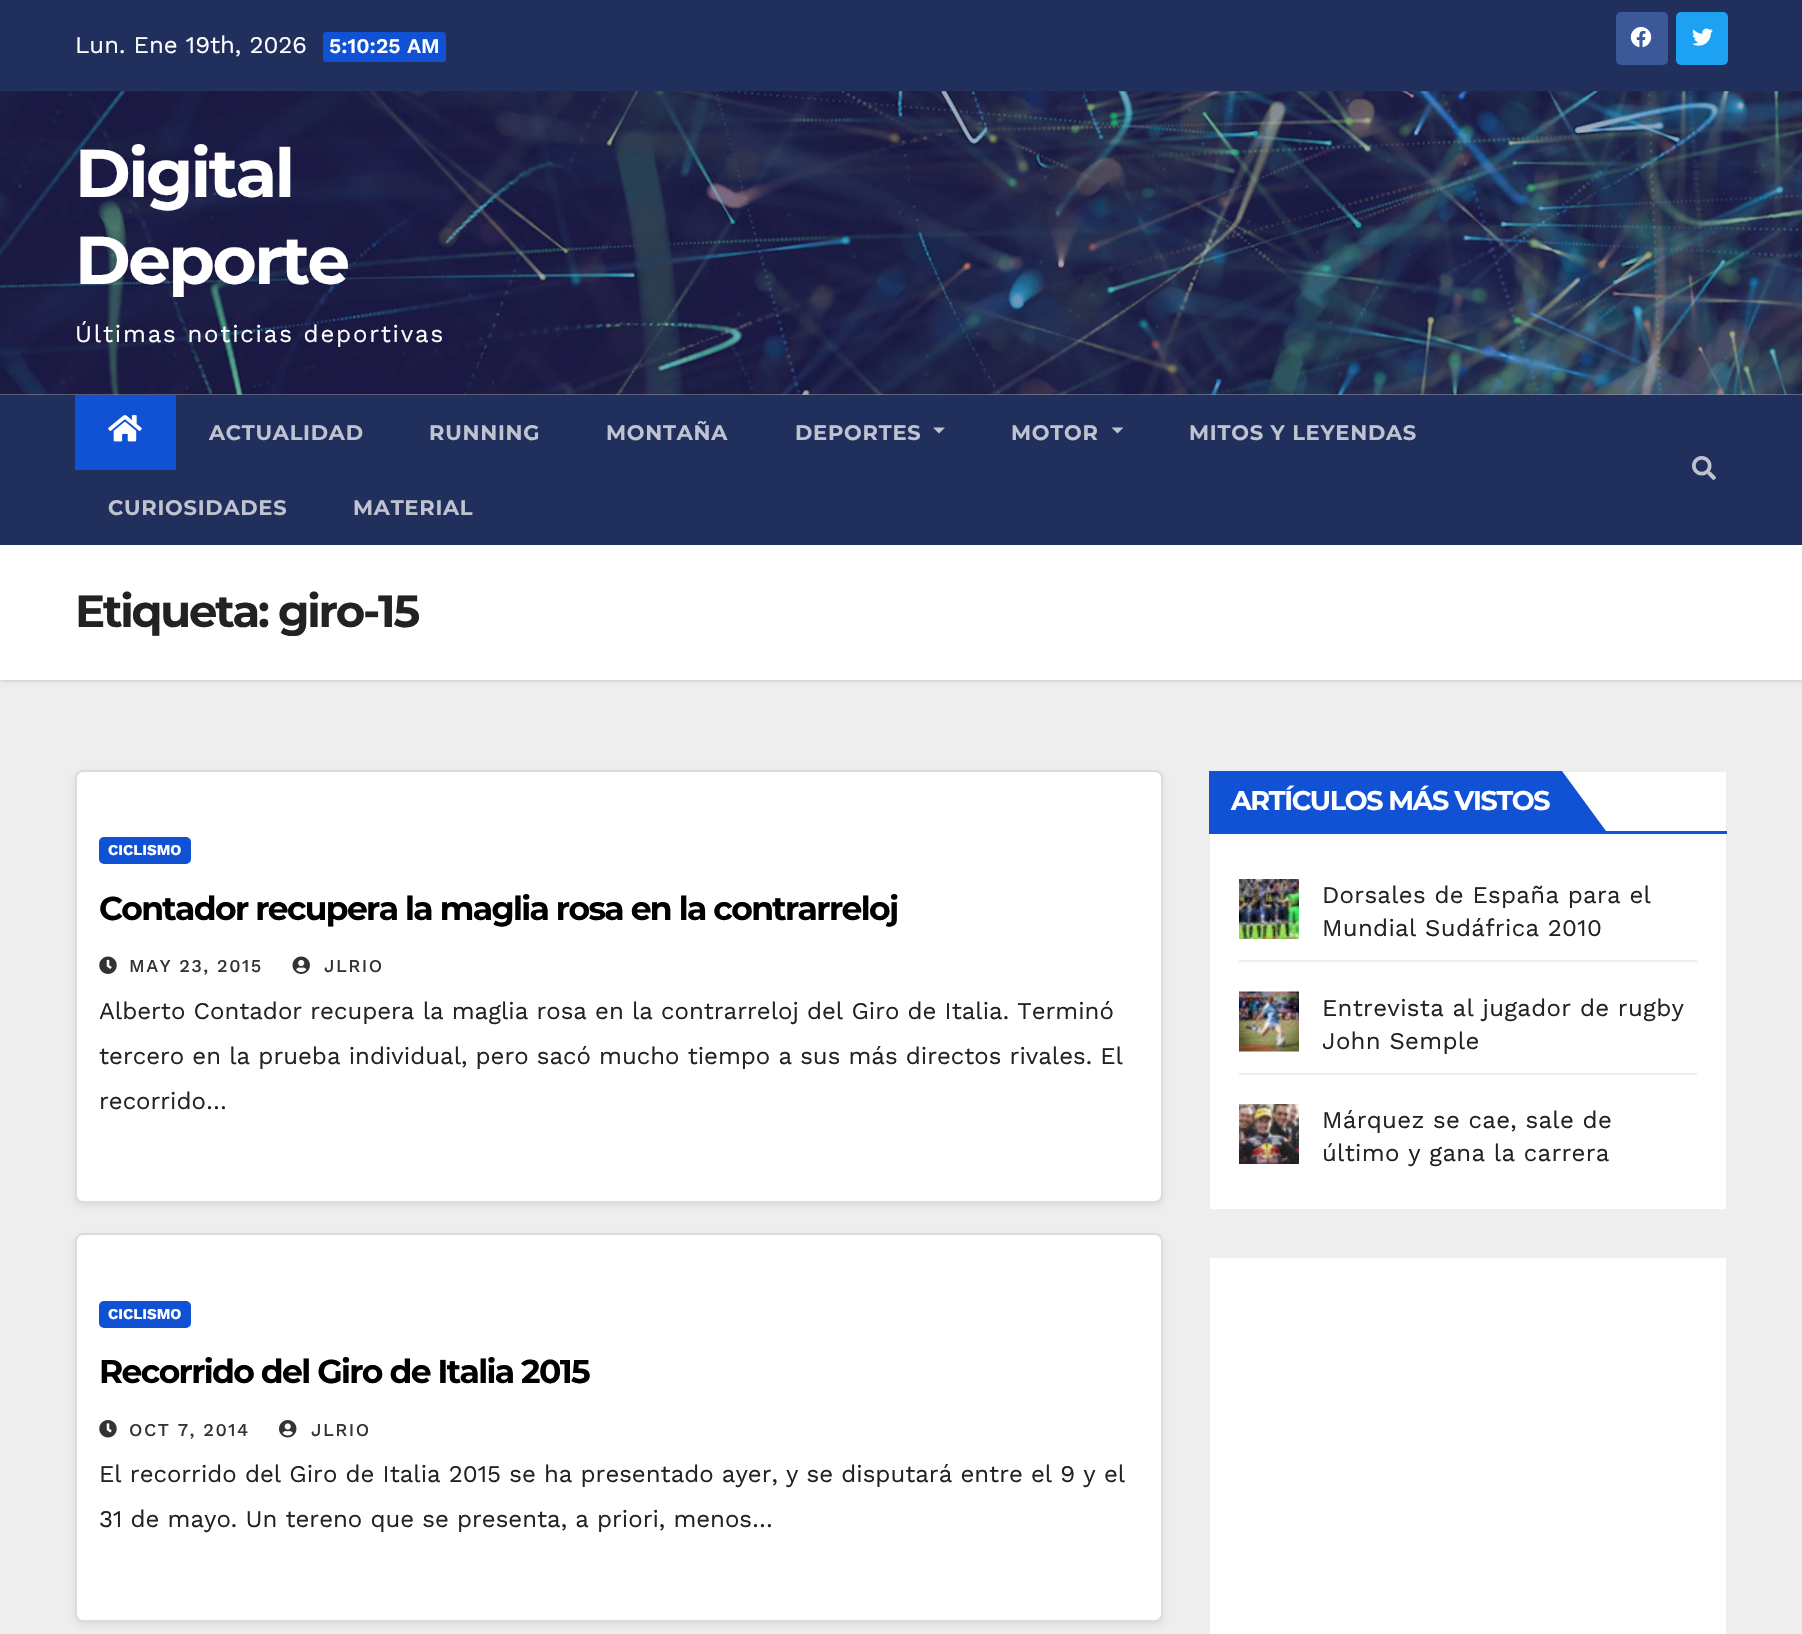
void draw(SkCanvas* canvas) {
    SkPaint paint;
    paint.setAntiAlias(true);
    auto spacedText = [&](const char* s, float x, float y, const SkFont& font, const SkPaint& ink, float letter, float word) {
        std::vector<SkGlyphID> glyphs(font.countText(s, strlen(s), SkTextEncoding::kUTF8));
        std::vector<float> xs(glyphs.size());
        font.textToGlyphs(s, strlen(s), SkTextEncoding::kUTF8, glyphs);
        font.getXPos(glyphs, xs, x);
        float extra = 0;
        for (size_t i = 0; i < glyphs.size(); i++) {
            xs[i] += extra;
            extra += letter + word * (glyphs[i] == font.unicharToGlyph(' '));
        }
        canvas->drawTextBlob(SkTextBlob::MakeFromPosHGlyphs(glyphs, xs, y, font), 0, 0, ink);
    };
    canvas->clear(0xFFEEEEEE);
    paint.setColor(0xFF9CA2B3);
    canvas->drawRect(SkRect::MakeXYWH(0, 394, 1802, 1), paint);
    paint.setColor(0xFF202F5B);
    canvas->drawRect(SkRect::MakeXYWH(0, 0, 1802, 92), paint);
    SkFont font1(fontMgr->matchFamilyStyle("Work Sans", SkFontStyle::Normal()), 24);
    font1.setSubpixel(true);
    paint.setColor(0xFFFFFFFF);
    canvas->drawString("Lun. Ene 19th, 2026", 75, 53, font1, paint);
    paint.setColor(0xFF1151D3);
    canvas->drawRoundRect(SkRect::MakeXYWH(323, 32, 123, 30), 3, 3, paint);
    SkFont font2(fontMgr->matchFamilyStyle("Work Sans", SkFontStyle(600, SkFontStyle::kNormal_Width, SkFontStyle::kUpright_Slant)), 21);
    font2.setSubpixel(true);
    paint.setColor(0xFFFFFFFF);
    canvas->drawString("5:10:25 AM", 329, 53, font2, paint);
    paint.setColor(0xFF3B5998);
    canvas->drawRoundRect(SkRect::MakeXYWH(1616, 12, 52, 53), 5, 5, paint);
    canvas->drawImageRect(SkImages::DeferredFromEncodedData(SkData::MakeFromFileName("img1.png")), SkRect::MakeXYWH(1630, 27, 22, 21), SkSamplingOptions());
    paint.setColor(0xFF1DA1F2);
    canvas->drawRoundRect(SkRect::MakeXYWH(1676, 12, 52, 53), 5, 5, paint);
    canvas->drawImageRect(SkImages::DeferredFromEncodedData(SkData::MakeFromFileName("img2.png")), SkRect::MakeXYWH(1692, 28, 21, 18), SkSamplingOptions());
    canvas->drawImageRect(SkImages::DeferredFromEncodedData(SkData::MakeFromFileName("img3.png")), SkRect::MakeXYWH(0, 91, 1802, 304), SkSamplingOptions());
    SkFont font3(fontMgr->matchFamilyStyle("Montserrat", SkFontStyle::Bold()), 67.5f);
    font3.setSubpixel(true);
    paint.setColor(0xFFFFFFFF);
    spacedText("Digital", 75, 197, font3, paint, -2.5f, 0);
    spacedText("Deporte", 75, 284, font3, paint, -2.5f, 0);
    spacedText("Últimas noticias deportivas", 75, 342, font1, paint, 1.8f, 0);
    paint.setColor(0x26000000);
    paint.setMaskFilter(SkMaskFilter::MakeBlur(kNormal_SkBlurStyle, 2));
    canvas->drawRect(SkRect::MakeXYWH(0, 546, 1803, 135), paint);
    paint.setMaskFilter(nullptr);
    paint.setColor(0xFF202F5B);
    canvas->drawRect(SkRect::MakeXYWH(0, 395, 1802, 150), paint);
    paint.setColor(0xFF1151D3);
    canvas->drawRect(SkRect::MakeXYWH(75, 395, 101, 75), paint);
    canvas->drawImageRect(SkImages::DeferredFromEncodedData(SkData::MakeFromFileName("img4.png")), SkRect::MakeXYWH(108, 415, 34, 27), SkSamplingOptions());
    SkFont font4(fontMgr->matchFamilyStyle("Montserrat", SkFontStyle::Bold()), 21);
    font4.setSubpixel(true);
    paint.setColor(0xFFBEC3CF);
    spacedText("ACTUALIDAD", 209, 440, font4, paint, 0.75f, 0);
    spacedText("RUNNING", 429, 440, font4, paint, 0.75f, 0);
    spacedText("MONTAÑA", 606, 440, font4, paint, 0.75f, 0);
    spacedText("DEPORTES", 795, 440, font4, paint, 0.75f, 0);
    canvas->drawPath(SkPathBuilder().moveTo(933, 427.5f).lineTo(945, 427.5f).lineTo(939, 433.5f).close().detach(), paint);
    spacedText("MOTOR", 1011, 440, font4, paint, 0.75f, 0);
    canvas->drawPath(SkPathBuilder().moveTo(1111.5f, 427.5f).lineTo(1123.5f, 427.5f).lineTo(1117.5f, 433.5f).close().detach(), paint);
    spacedText("MITOS Y LEYENDAS", 1189, 440, font4, paint, 0.75f, 0);
    spacedText("CURIOSIDADES", 108, 515, font4, paint, 0.75f, 0);
    spacedText("MATERIAL", 353, 515, font4, paint, 0.75f, 0);
    canvas->drawImageRect(SkImages::DeferredFromEncodedData(SkData::MakeFromFileName("img5.png")), SkRect::MakeXYWH(1692, 456, 24, 24), SkSamplingOptions());
    paint.setColor(0xFFFFFFFF);
    canvas->drawRect(SkRect::MakeXYWH(0, 545, 1802, 135), paint);
    SkFont font5(fontMgr->matchFamilyStyle("Montserrat", SkFontStyle::Bold()), 45);
    font5.setSubpixel(true);
    paint.setColor(0xFF222222);
    spacedText("Etiqueta: giro-15", 75, 627, font5, paint, -2.25f, 0);
    paint.setColor(0x14000000);
    paint.setMaskFilter(SkMaskFilter::MakeBlur(kNormal_SkBlurStyle, 3));
    canvas->drawRoundRect(SkRect::MakeXYWH(75, 773, 1088, 433), 8, 8, paint);
    paint.setMaskFilter(nullptr);
    paint.setColor(0xFFFFFFFF);
    canvas->drawRoundRect(SkRect::MakeXYWH(76, 771, 1086, 431), 7, 7, paint);
    paint.setStyle(SkPaint::kStroke_Style);
    paint.setStrokeWidth(2);
    paint.setColor(0xFFDDDCDC);
    canvas->drawRoundRect(SkRect::MakeXYWH(76, 771, 1086, 431), 7, 7, paint);
    paint.setStyle(SkPaint::kFill_Style);
    paint.setColor(0xFF1151D3);
    canvas->drawRoundRect(SkRect::MakeXYWH(99, 837, 92, 27), 5, 5, paint);
    SkFont font6(fontMgr->matchFamilyStyle("Work Sans", SkFontStyle::Bold()), 15);
    font6.setSubpixel(true);
    paint.setColor(0xFFFFFFFF);
    canvas->drawString("CICLISMO", 108, 855, font6, paint);
    SkFont font7(fontMgr->matchFamilyStyle("Montserrat", SkFontStyle::Bold()), 33);
    font7.setSubpixel(true);
    paint.setColor(0xFF000000);
    spacedText("Contador recupera la maglia rosa en la contrarreloj", 99, 920, font7, paint, -1.65f, 0);
    canvas->drawImageRect(SkImages::DeferredFromEncodedData(SkData::MakeFromFileName("img6.png")), SkRect::MakeXYWH(99, 956, 18, 18), SkSamplingOptions());
    SkFont font8(fontMgr->matchFamilyStyle("Work Sans", SkFontStyle(500, SkFontStyle::kNormal_Width, SkFontStyle::kUpright_Slant)), 18);
    font8.setSubpixel(true);
    paint.setColor(0xFF333333);
    spacedText("MAY 23, 2015", 129, 972, font8, paint, 1.5f, 0);
    canvas->drawImageRect(SkImages::DeferredFromEncodedData(SkData::MakeFromFileName("img7.png")), SkRect::MakeXYWH(292, 956, 18, 18), SkSamplingOptions());
    spacedText("JLRIO", 324, 972, font8, paint, 1.5f, 0);
    paint.setColor(0xFF222222);
    canvas->drawString("Alberto Contador recupera la maglia rosa en la contrarreloj del Giro de Italia. Terminó", 99, 1019, font1, paint);
    canvas->drawString("tercero en la prueba individual, pero sacó mucho tiempo a sus más directos rivales. El", 99, 1064, font1, paint);
    canvas->drawString("recorrido…", 99, 1109, font1, paint);
    paint.setColor(0x14000000);
    paint.setMaskFilter(SkMaskFilter::MakeBlur(kNormal_SkBlurStyle, 3));
    canvas->drawRoundRect(SkRect::MakeXYWH(75, 1236, 1088, 389), 8, 8, paint);
    paint.setMaskFilter(nullptr);
    paint.setColor(0xFFFFFFFF);
    canvas->drawRoundRect(SkRect::MakeXYWH(76, 1234, 1086, 387), 7, 7, paint);
    paint.setStyle(SkPaint::kStroke_Style);
    paint.setColor(0xFFDDDCDC);
    canvas->drawRoundRect(SkRect::MakeXYWH(76, 1234, 1086, 387), 7, 7, paint);
    paint.setStyle(SkPaint::kFill_Style);
    paint.setColor(0xFF1151D3);
    canvas->drawRoundRect(SkRect::MakeXYWH(99, 1301, 92, 27), 5, 5, paint);
    paint.setColor(0xFFFFFFFF);
    canvas->drawString("CICLISMO", 108, 1319, font6, paint);
    paint.setColor(0xFF000000);
    spacedText("Recorrido del Giro de Italia 2015", 99, 1383, font7, paint, -1.65f, 0);
    canvas->drawImageRect(SkImages::DeferredFromEncodedData(SkData::MakeFromFileName("img8.png")), SkRect::MakeXYWH(99, 1420, 18, 18), SkSamplingOptions());
    paint.setColor(0xFF333333);
    spacedText("OCT 7, 2014", 129, 1436, font8, paint, 1.5f, 0);
    canvas->drawImageRect(SkImages::DeferredFromEncodedData(SkData::MakeFromFileName("img9.png")), SkRect::MakeXYWH(279, 1420, 18, 18), SkSamplingOptions());
    spacedText("JLRIO", 311, 1436, font8, paint, 1.5f, 0);
    paint.setColor(0xFF222222);
    canvas->drawString("El recorrido del Giro de Italia 2015 se ha presentado ayer, y se disputará entre el 9 y el", 99, 1482, font1, paint);
    canvas->drawString("31 de mayo. Un tereno que se presenta, a priori, menos…", 99, 1527, font1, paint);
    paint.setColor(0xFFFFFFFF);
    canvas->drawRect(SkRect::MakeXYWH(1210, 772, 516, 437), paint);
    paint.setColor(0xFF1151D3);
    canvas->drawRect(SkRect::MakeXYWH(1209, 831, 518, 3), paint);
    canvas->drawRect(SkRect::MakeXYWH(1209, 771, 353, 60), paint);
    SkFont font9(fontMgr->matchFamilyStyle("Montserrat", SkFontStyle::Bold()), 27);
    font9.setSubpixel(true);
    paint.setColor(0xFFFFFFFF);
    spacedText("ARTÍCULOS MÁS VISTOS", 1231, 810, font9, paint, -1.35f, 0);
    paint.setColor(0xFF1151D3);
    canvas->drawPath(SkPathBuilder().moveTo(1562, 831).lineTo(1562, 771).lineTo(1606, 831).close().detach(), paint);
    paint.setColor(0xFFEEEEEE);
    canvas->drawRect(SkRect::MakeXYWH(1239, 960, 458, 2), paint);
    canvas->drawImageRect(SkImages::DeferredFromEncodedData(SkData::MakeFromFileName("img10.png")), SkRect::MakeXYWH(1239, 879, 60, 60), SkSamplingOptions());
    paint.setColor(0xFF222222);
    spacedText("Dorsales de España para el", 1322, 903, font1, paint, 0.3f, 0);
    spacedText("Mundial Sudáfrica 2010", 1322, 936, font1, paint, 0.3f, 0);
    paint.setColor(0xFFEEEEEE);
    canvas->drawRect(SkRect::MakeXYWH(1239, 1073, 458, 2), paint);
    canvas->drawImageRect(SkImages::DeferredFromEncodedData(SkData::MakeFromFileName("img11.png")), SkRect::MakeXYWH(1239, 991, 60, 61), SkSamplingOptions());
    paint.setColor(0xFF222222);
    spacedText("Entrevista al jugador de rugby", 1322, 1016, font1, paint, 0.3f, 0);
    spacedText("John Semple", 1322, 1049, font1, paint, 0.3f, 0);
    canvas->drawImageRect(SkImages::DeferredFromEncodedData(SkData::MakeFromFileName("img12.png")), SkRect::MakeXYWH(1239, 1104, 60, 60), SkSamplingOptions());
    spacedText("Márquez se cae, sale de", 1322, 1128, font1, paint, 0.3f, 0);
    spacedText("último y gana la carrera", 1322, 1161, font1, paint, 0.3f, 0);
    paint.setColor(0xFFFFFFFF);
    canvas->drawRect(SkRect::MakeXYWH(1210, 1258, 516, 376), paint);
}
